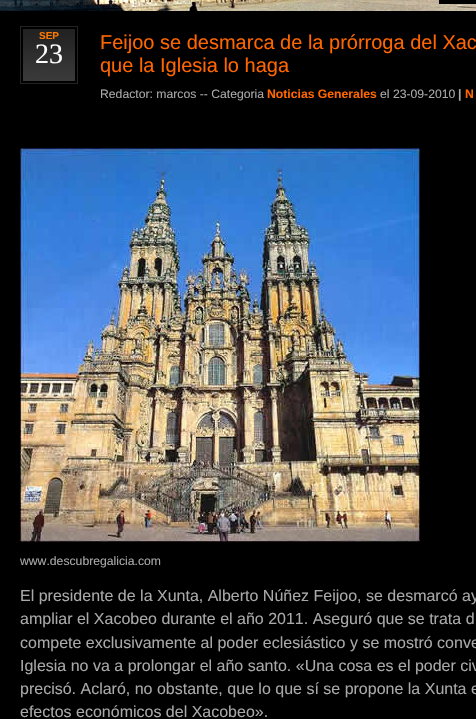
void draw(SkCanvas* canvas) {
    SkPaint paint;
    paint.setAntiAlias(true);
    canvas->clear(0xFFFFFFFF);
    canvas->drawImageRect(SkImages::DeferredFromEncodedData(SkData::MakeFromFileName("img1.png")), SkRect::MakeXYWH(0, 0, 476, 11), SkSamplingOptions());
    paint.setColor(0xFF000000);
    canvas->drawRect(SkRect::MakeXYWH(439, 0, 37, 4), paint);
    canvas->drawRect(SkRect::MakeXYWH(0, 11, 476, 708), paint);
    canvas->drawImageRect(SkImages::DeferredFromEncodedData(SkData::MakeFromFileName("img2.png")), SkRect::MakeXYWH(20, 26, 58, 58), SkSamplingOptions());
    SkFont font1(fontMgr->matchFamilyStyle("Liberation Sans", SkFontStyle::Bold()), 10);
    font1.setSubpixel(true);
    paint.setColor(0xFFFF7900);
    canvas->drawString("SEP", 39, 39, font1, paint);
    SkFont font2(fontMgr->matchFamilyStyle("Liberation Serif", SkFontStyle::Normal()), 28);
    font2.setSubpixel(true);
    paint.setColor(0xFFFFFFFF);
    canvas->drawString("23", 35, 63, font2, paint);
    SkFont font3(fontMgr->matchFamilyStyle("Liberation Sans", SkFontStyle::Normal()), 20);
    font3.setSubpixel(true);
    paint.setColor(0xFFFF6600);
    canvas->drawString("Feijoo se desmarca de la prórroga del Xac", 100, 49, font3, paint);
    canvas->drawString("que la Iglesia lo haga", 100, 72, font3, paint);
    SkFont font4(fontMgr->matchFamilyStyle("Liberation Sans", SkFontStyle::Normal()), 12.2f);
    font4.setSubpixel(true);
    paint.setColor(0xFFA9A9A9);
    canvas->drawString("Redactor: marcos -- Categoria", 100, 98, font4, paint);
    SkFont font5(fontMgr->matchFamilyStyle("Liberation Sans", SkFontStyle::Bold()), 12.2f);
    font5.setSubpixel(true);
    paint.setColor(0xFFFF6600);
    canvas->drawString("Noticias Generales", 267, 98, font5, paint);
    paint.setColor(0xFFA9A9A9);
    canvas->drawString("el 23-09-2010", 380, 98, font4, paint);
    canvas->drawString("|", 458, 98, font5, paint);
    paint.setColor(0xFFFF6600);
    canvas->drawString("N", 465, 98, font5, paint);
    canvas->drawImageRect(SkImages::DeferredFromEncodedData(SkData::MakeFromFileName("img3.png")), SkRect::MakeXYWH(20, 148, 400, 394), SkSamplingOptions());
    paint.setColor(0xFFA9A9A9);
    canvas->drawString("www.descubregalicia.com", 20, 565, font4, paint);
    SkFont font6(fontMgr->matchFamilyStyle("Liberation Sans", SkFontStyle::Normal()), 16);
    font6.setSubpixel(true);
    canvas->drawString("El presidente de la Xunta, Alberto Núñez Feijoo, se desmarcó ay", 20, 601, font6, paint);
    canvas->drawString("ampliar el Xacobeo durante el año 2011. Aseguró que se trata d", 20, 624, font6, paint);
    canvas->drawString("compete exclusivamente al poder eclesiástico y se mostró conve", 20, 648, font6, paint);
    canvas->drawString("Iglesia no va a prolongar el año santo. «Una cosa es el poder civ", 20, 671, font6, paint);
    canvas->drawString("precisó. Aclaró, no obstante, que lo que sí se propone la Xunta e", 20, 694, font6, paint);
    canvas->drawString("efectos económicos del Xacobeo».", 20, 717, font6, paint);
}
